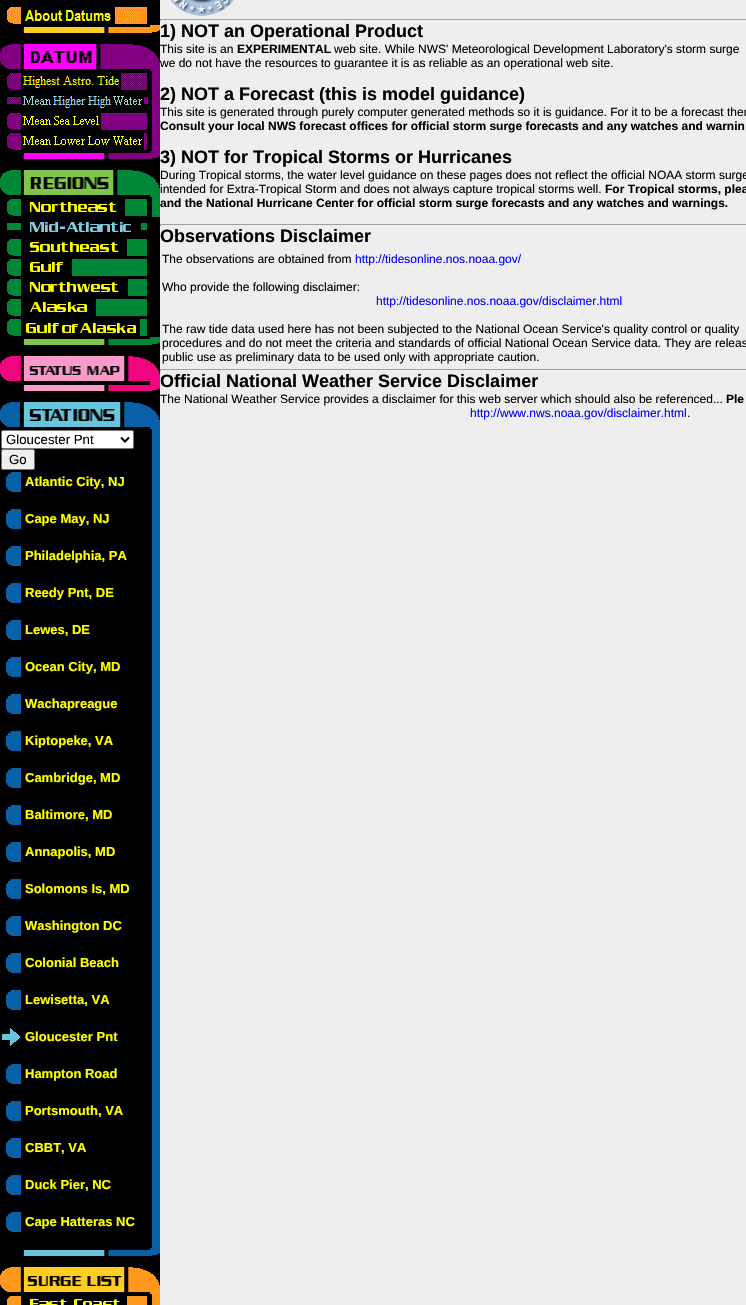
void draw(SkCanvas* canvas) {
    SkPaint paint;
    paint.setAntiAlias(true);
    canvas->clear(0xFF000000);
    paint.setColor(0xFFEEEEEE);
    canvas->drawRect(SkRect::MakeXYWH(160, 0, 586, 1305), paint);
    canvas->drawImageRect(SkImages::DeferredFromEncodedData(SkData::MakeFromFileName("img1.png")), SkRect::MakeXYWH(169, 0, 65, 16), SkSamplingOptions());
    paint.setColor(0xFF9F9F9F);
    canvas->drawRect(SkRect::MakeXYWH(160, 19, 586, 1), paint);
    canvas->drawRect(SkRect::MakeXYWH(160, 19, 1, 2), paint);
    SkFont font1(fontMgr->matchFamilyStyle("Liberation Sans", SkFontStyle::Bold()), 18);
    font1.setSubpixel(true);
    paint.setColor(0xFF000000);
    canvas->drawString("1) NOT an Operational Product", 160, 37, font1, paint);
    SkFont font2(fontMgr->matchFamilyStyle("Liberation Sans", SkFontStyle::Normal()), 12);
    font2.setSubpixel(true);
    canvas->drawString("This site is an", 160, 53, font2, paint);
    SkFont font3(fontMgr->matchFamilyStyle("Liberation Sans", SkFontStyle::Bold()), 12);
    font3.setSubpixel(true);
    canvas->drawString("EXPERIMENTAL", 237, 53, font3, paint);
    canvas->drawString("web site. While NWS' Meteorological Development Laboratory's storm surge", 334, 53, font2, paint);
    canvas->drawString("we do not have the resources to guarantee it is as reliable as an operational web site.", 160, 67, font2, paint);
    canvas->drawString("2) NOT a Forecast (this is model guidance)", 160, 100, font1, paint);
    canvas->drawString("This site is generated through purely computer generated methods so it is guidance. For it to be a forecast ther", 160, 116, font2, paint);
    canvas->drawString("Consult your local NWS forecast offices for official storm surge forecasts and any watches and warnin", 160, 130, font3, paint);
    canvas->drawString("3) NOT for Tropical Storms or Hurricanes", 160, 163, font1, paint);
    canvas->drawString("During Tropical storms, the water level guidance on these pages does not reflect the official NOAA storm surge", 160, 179, font2, paint);
    canvas->drawString("intended for Extra-Tropical Storm and does not always capture tropical storms well.", 160, 193, font2, paint);
    canvas->drawString("For Tropical storms, plea", 605, 193, font3, paint);
    canvas->drawString("and the National Hurricane Center for official storm surge forecasts and any watches and warnings.", 160, 207, font3, paint);
    paint.setColor(0xFF9F9F9F);
    canvas->drawRect(SkRect::MakeXYWH(160, 224, 586, 1), paint);
    canvas->drawRect(SkRect::MakeXYWH(160, 224, 1, 2), paint);
    paint.setColor(0xFF000000);
    canvas->drawString("Observations Disclaimer", 160, 242, font1, paint);
    canvas->drawString("The observations are obtained from", 162, 263, font2, paint);
    paint.setColor(0xFF0000FF);
    canvas->drawString("http://tidesonline.nos.noaa.gov/", 355, 263, font2, paint);
    paint.setColor(0xFF000000);
    canvas->drawString("Who provide the following disclaimer:", 162, 291, font2, paint);
    paint.setColor(0xFF0000FF);
    canvas->drawString("http://tidesonline.nos.noaa.gov/disclaimer.html", 376, 305, font2, paint);
    paint.setColor(0xFF000000);
    canvas->drawString("The raw tide data used here has not been subjected to the National Ocean Service's quality control or quality", 162, 333, font2, paint);
    canvas->drawString("procedures and do not meet the criteria and standards of official National Ocean Service data. They are releas", 162, 347, font2, paint);
    canvas->drawString("public use as preliminary data to be used only with appropriate caution.", 162, 361, font2, paint);
    paint.setColor(0xFF9F9F9F);
    canvas->drawRect(SkRect::MakeXYWH(160, 369, 586, 1), paint);
    canvas->drawRect(SkRect::MakeXYWH(160, 369, 1, 2), paint);
    paint.setColor(0xFF000000);
    canvas->drawString("Official National Weather Service Disclaimer", 160, 387, font1, paint);
    canvas->drawString("The National Weather Service provides a disclaimer for this web server which should also be referenced...", 160, 403, font2, paint);
    canvas->drawString("Ple", 726, 403, font3, paint);
    paint.setColor(0xFF0000FF);
    canvas->drawString("http://www.nws.noaa.gov/disclaimer.html", 470, 417, font2, paint);
    paint.setColor(0xFF000000);
    canvas->drawString(".", 687, 417, font2, paint);
    canvas->drawImageRect(SkImages::DeferredFromEncodedData(SkData::MakeFromFileName("img2.png")), SkRect::MakeXYWH(7, 7, 140, 17), SkSamplingOptions());
    canvas->drawImageRect(SkImages::DeferredFromEncodedData(SkData::MakeFromFileName("img3.png")), SkRect::MakeXYWH(23, 25, 137, 8), SkSamplingOptions());
    canvas->drawImageRect(SkImages::DeferredFromEncodedData(SkData::MakeFromFileName("img4.png")), SkRect::MakeXYWH(0, 44, 160, 27), SkSamplingOptions());
    canvas->drawImageRect(SkImages::DeferredFromEncodedData(SkData::MakeFromFileName("img5.png")), SkRect::MakeXYWH(7, 73, 140, 17), SkSamplingOptions());
    paint.setColor(0xFF800080);
    canvas->drawRect(SkRect::MakeXYWH(152, 71, 8, 80), paint);
    canvas->drawImageRect(SkImages::DeferredFromEncodedData(SkData::MakeFromFileName("img6.png")), SkRect::MakeXYWH(7, 96, 141, 12), SkSamplingOptions());
    canvas->drawImageRect(SkImages::DeferredFromEncodedData(SkData::MakeFromFileName("img7.png")), SkRect::MakeXYWH(7, 113, 140, 17), SkSamplingOptions());
    canvas->drawImageRect(SkImages::DeferredFromEncodedData(SkData::MakeFromFileName("img8.png")), SkRect::MakeXYWH(7, 133, 140, 17), SkSamplingOptions());
    canvas->drawImageRect(SkImages::DeferredFromEncodedData(SkData::MakeFromFileName("img9.png")), SkRect::MakeXYWH(23, 151, 137, 8), SkSamplingOptions());
    canvas->drawImageRect(SkImages::DeferredFromEncodedData(SkData::MakeFromFileName("img10.png")), SkRect::MakeXYWH(0, 170, 160, 27), SkSamplingOptions());
    canvas->drawImageRect(SkImages::DeferredFromEncodedData(SkData::MakeFromFileName("img11.png")), SkRect::MakeXYWH(7, 199, 140, 17), SkSamplingOptions());
    paint.setColor(0xFF008737);
    canvas->drawRect(SkRect::MakeXYWH(152, 197, 8, 20), paint);
    canvas->drawImageRect(SkImages::DeferredFromEncodedData(SkData::MakeFromFileName("img12.png")), SkRect::MakeXYWH(7, 222, 140, 10), SkSamplingOptions());
    canvas->drawImageRect(SkImages::DeferredFromEncodedData(SkData::MakeFromFileName("img13.png")), SkRect::MakeXYWH(7, 239, 140, 17), SkSamplingOptions());
    canvas->drawImageRect(SkImages::DeferredFromEncodedData(SkData::MakeFromFileName("img14.png")), SkRect::MakeXYWH(7, 259, 140, 17), SkSamplingOptions());
    canvas->drawImageRect(SkImages::DeferredFromEncodedData(SkData::MakeFromFileName("img15.png")), SkRect::MakeXYWH(7, 279, 140, 17), SkSamplingOptions());
    canvas->drawImageRect(SkImages::DeferredFromEncodedData(SkData::MakeFromFileName("img16.png")), SkRect::MakeXYWH(7, 299, 140, 17), SkSamplingOptions());
    canvas->drawImageRect(SkImages::DeferredFromEncodedData(SkData::MakeFromFileName("img17.png")), SkRect::MakeXYWH(7, 319, 140, 17), SkSamplingOptions());
    canvas->drawImageRect(SkImages::DeferredFromEncodedData(SkData::MakeFromFileName("img18.png")), SkRect::MakeXYWH(23, 337, 137, 8), SkSamplingOptions());
    canvas->drawImageRect(SkImages::DeferredFromEncodedData(SkData::MakeFromFileName("img19.png")), SkRect::MakeXYWH(0, 356, 160, 27), SkSamplingOptions());
    canvas->drawImageRect(SkImages::DeferredFromEncodedData(SkData::MakeFromFileName("img20.png")), SkRect::MakeXYWH(23, 383, 137, 8), SkSamplingOptions());
    canvas->drawImageRect(SkImages::DeferredFromEncodedData(SkData::MakeFromFileName("img21.png")), SkRect::MakeXYWH(0, 402, 160, 27), SkSamplingOptions());
    paint.setColor(0xFFFFFFFF);
    canvas->drawRoundRect(SkRect::MakeXYWH(1.5f, 430.5f, 132, 18), 1.5f, 1.5f, paint);
    paint.setStyle(SkPaint::kStroke_Style);
    paint.setStrokeWidth(1);
    paint.setColor(0xFF767676);
    canvas->drawRoundRect(SkRect::MakeXYWH(1.5f, 430.5f, 132, 18), 1.5f, 1.5f, paint);
    paint.setStrokeWidth(2);
    paint.setColor(0xFF000000);
    canvas->drawPath(SkPathBuilder().moveTo(121, 437.5f).lineTo(125, 441.5f).lineTo(129, 437.5f).detach(), paint);
    SkFont font4(fontMgr->matchFamilyStyle("Liberation Sans", SkFontStyle::Normal()), 13.25f);
    font4.setSubpixel(true);
    paint.setStyle(SkPaint::kFill_Style);
    canvas->drawString("Gloucester Pnt", 6, 444, font4, paint);
    paint.setColor(0xFFEFEFEF);
    canvas->drawRoundRect(SkRect::MakeXYWH(1.5f, 449.5f, 33, 20), 1.5f, 1.5f, paint);
    paint.setStyle(SkPaint::kStroke_Style);
    paint.setStrokeWidth(1);
    paint.setColor(0xFF767676);
    canvas->drawRoundRect(SkRect::MakeXYWH(1.5f, 449.5f, 33, 20), 1.5f, 1.5f, paint);
    paint.setStyle(SkPaint::kFill_Style);
    paint.setColor(0xFF000000);
    canvas->drawString("Go", 9, 464, font4, paint);
    canvas->drawImageRect(SkImages::DeferredFromEncodedData(SkData::MakeFromFileName("img22.png")), SkRect::MakeXYWH(6, 472, 15, 20), SkSamplingOptions());
    SkFont font5(fontMgr->matchFamilyStyle("Liberation Sans", SkFontStyle::Bold()), 13);
    font5.setSubpixel(true);
    paint.setColor(0xFFFFFF00);
    canvas->drawString("Atlantic City, NJ", 25, 486, font5, paint);
    canvas->drawImageRect(SkImages::DeferredFromEncodedData(SkData::MakeFromFileName("img22.png")), SkRect::MakeXYWH(6, 509, 15, 20), SkSamplingOptions());
    canvas->drawString("Cape May, NJ", 25, 523, font5, paint);
    canvas->drawImageRect(SkImages::DeferredFromEncodedData(SkData::MakeFromFileName("img22.png")), SkRect::MakeXYWH(6, 546, 15, 20), SkSamplingOptions());
    canvas->drawString("Philadelphia, PA", 25, 560, font5, paint);
    canvas->drawImageRect(SkImages::DeferredFromEncodedData(SkData::MakeFromFileName("img22.png")), SkRect::MakeXYWH(6, 583, 15, 20), SkSamplingOptions());
    canvas->drawString("Reedy Pnt, DE", 25, 597, font5, paint);
    canvas->drawImageRect(SkImages::DeferredFromEncodedData(SkData::MakeFromFileName("img22.png")), SkRect::MakeXYWH(6, 620, 15, 20), SkSamplingOptions());
    canvas->drawString("Lewes, DE", 25, 634, font5, paint);
    canvas->drawImageRect(SkImages::DeferredFromEncodedData(SkData::MakeFromFileName("img22.png")), SkRect::MakeXYWH(6, 657, 15, 20), SkSamplingOptions());
    canvas->drawString("Ocean City, MD", 25, 671, font5, paint);
    canvas->drawImageRect(SkImages::DeferredFromEncodedData(SkData::MakeFromFileName("img22.png")), SkRect::MakeXYWH(6, 694, 15, 20), SkSamplingOptions());
    canvas->drawString("Wachapreague", 25, 708, font5, paint);
    canvas->drawImageRect(SkImages::DeferredFromEncodedData(SkData::MakeFromFileName("img22.png")), SkRect::MakeXYWH(6, 731, 15, 20), SkSamplingOptions());
    canvas->drawString("Kiptopeke, VA", 25, 745, font5, paint);
    canvas->drawImageRect(SkImages::DeferredFromEncodedData(SkData::MakeFromFileName("img22.png")), SkRect::MakeXYWH(6, 768, 15, 20), SkSamplingOptions());
    canvas->drawString("Cambridge, MD", 25, 782, font5, paint);
    canvas->drawImageRect(SkImages::DeferredFromEncodedData(SkData::MakeFromFileName("img22.png")), SkRect::MakeXYWH(6, 805, 15, 20), SkSamplingOptions());
    canvas->drawString("Baltimore, MD", 25, 819, font5, paint);
    canvas->drawImageRect(SkImages::DeferredFromEncodedData(SkData::MakeFromFileName("img22.png")), SkRect::MakeXYWH(6, 842, 15, 20), SkSamplingOptions());
    canvas->drawString("Annapolis, MD", 25, 856, font5, paint);
    canvas->drawImageRect(SkImages::DeferredFromEncodedData(SkData::MakeFromFileName("img22.png")), SkRect::MakeXYWH(6, 879, 15, 20), SkSamplingOptions());
    canvas->drawString("Solomons Is, MD", 25, 893, font5, paint);
    canvas->drawImageRect(SkImages::DeferredFromEncodedData(SkData::MakeFromFileName("img22.png")), SkRect::MakeXYWH(6, 916, 15, 20), SkSamplingOptions());
    canvas->drawString("Washington DC", 25, 930, font5, paint);
    canvas->drawImageRect(SkImages::DeferredFromEncodedData(SkData::MakeFromFileName("img22.png")), SkRect::MakeXYWH(6, 953, 15, 20), SkSamplingOptions());
    canvas->drawString("Colonial Beach", 25, 967, font5, paint);
    canvas->drawImageRect(SkImages::DeferredFromEncodedData(SkData::MakeFromFileName("img22.png")), SkRect::MakeXYWH(6, 990, 15, 20), SkSamplingOptions());
    canvas->drawString("Lewisetta, VA", 25, 1004, font5, paint);
    canvas->drawImageRect(SkImages::DeferredFromEncodedData(SkData::MakeFromFileName("img23.png")), SkRect::MakeXYWH(2, 1028, 18, 18), SkSamplingOptions());
    canvas->drawString("Gloucester Pnt", 25, 1041, font5, paint);
    canvas->drawImageRect(SkImages::DeferredFromEncodedData(SkData::MakeFromFileName("img22.png")), SkRect::MakeXYWH(6, 1064, 15, 20), SkSamplingOptions());
    canvas->drawString("Hampton Road", 25, 1078, font5, paint);
    canvas->drawImageRect(SkImages::DeferredFromEncodedData(SkData::MakeFromFileName("img22.png")), SkRect::MakeXYWH(6, 1101, 15, 20), SkSamplingOptions());
    canvas->drawString("Portsmouth, VA", 25, 1115, font5, paint);
    canvas->drawImageRect(SkImages::DeferredFromEncodedData(SkData::MakeFromFileName("img22.png")), SkRect::MakeXYWH(6, 1138, 15, 20), SkSamplingOptions());
    canvas->drawString("CBBT, VA", 25, 1152, font5, paint);
    canvas->drawImageRect(SkImages::DeferredFromEncodedData(SkData::MakeFromFileName("img22.png")), SkRect::MakeXYWH(6, 1175, 15, 20), SkSamplingOptions());
    canvas->drawString("Duck Pier, NC", 25, 1189, font5, paint);
    canvas->drawImageRect(SkImages::DeferredFromEncodedData(SkData::MakeFromFileName("img22.png")), SkRect::MakeXYWH(6, 1212, 15, 20), SkSamplingOptions());
    canvas->drawString("Cape Hatteras NC", 25, 1226, font5, paint);
    paint.setColor(0xFF0860A8);
    canvas->drawRect(SkRect::MakeXYWH(152, 429, 8, 819), paint);
    canvas->drawImageRect(SkImages::DeferredFromEncodedData(SkData::MakeFromFileName("img24.png")), SkRect::MakeXYWH(23, 1248, 137, 8), SkSamplingOptions());
    canvas->drawImageRect(SkImages::DeferredFromEncodedData(SkData::MakeFromFileName("img25.png")), SkRect::MakeXYWH(0, 1267, 160, 27), SkSamplingOptions());
    canvas->drawImageRect(SkImages::DeferredFromEncodedData(SkData::MakeFromFileName("img26.png")), SkRect::MakeXYWH(7, 1296, 140, 9), SkSamplingOptions());
    paint.setColor(0xFFFE991E);
    canvas->drawRect(SkRect::MakeXYWH(152, 1294, 8, 11), paint);
}
